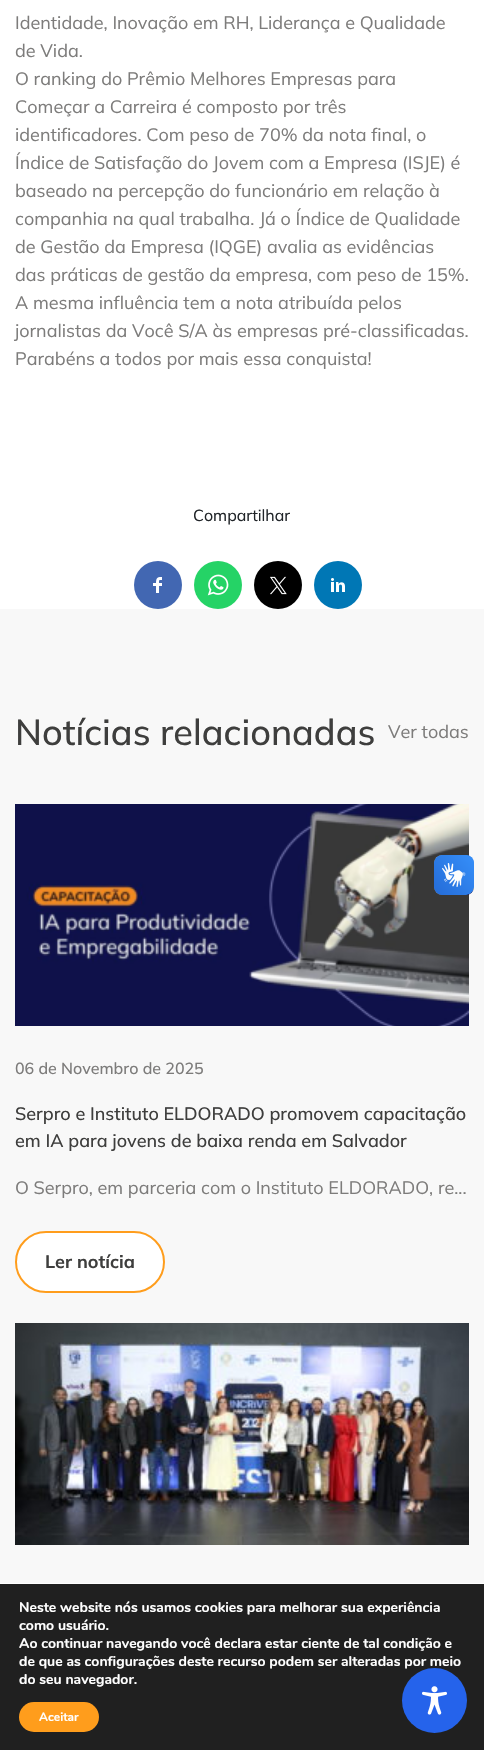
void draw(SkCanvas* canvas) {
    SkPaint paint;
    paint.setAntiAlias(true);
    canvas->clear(0xFFFFFFFF);
    SkFont font1(fontMgr->matchFamilyStyle("Mulish", SkFontStyle::Normal()), 18);
    font1.setSubpixel(true);
    paint.setColor(0xFF7D7C7B);
    canvas->drawString("Identidade, Inovação em RH, Liderança e Qualidade", 15, 29, font1, paint);
    canvas->drawString("de Vida.", 15, 57, font1, paint);
    canvas->drawString("O ranking do Prêmio Melhores Empresas para", 15, 85, font1, paint);
    canvas->drawString("Começar a Carreira é composto por três", 15, 113, font1, paint);
    canvas->drawString("identificadores. Com peso de 70% da nota final, o", 15, 141, font1, paint);
    canvas->drawString("Índice de Satisfação do Jovem com a Empresa (ISJE) é", 15, 169, font1, paint);
    canvas->drawString("baseado na percepção do funcionário em relação à", 15, 197, font1, paint);
    canvas->drawString("companhia na qual trabalha. Já o Índice de Qualidade", 15, 225, font1, paint);
    canvas->drawString("de Gestão da Empresa (IQGE) avalia as evidências", 15, 253, font1, paint);
    canvas->drawString("das práticas de gestão da empresa, com peso de 15%.", 15, 281, font1, paint);
    canvas->drawString("A mesma influência tem a nota atribuída pelos", 15, 309, font1, paint);
    canvas->drawString("jornalistas da Você S/A às empresas pré-classificadas.", 15, 337, font1, paint);
    canvas->drawString("Parabéns a todos por mais essa conquista!", 15, 365, font1, paint);
    SkFont font2(fontMgr->matchFamilyStyle("Mulish", SkFontStyle::Normal()), 16);
    font2.setSubpixel(true);
    paint.setColor(0xFF212529);
    canvas->drawString("Compartilhar", 193, 521, font2, paint);
    paint.setColor(0xFF4267B2);
    canvas->drawCircle(158, 585, 24, paint);
    canvas->drawImageRect(SkImages::DeferredFromEncodedData(SkData::MakeFromFileName("img1.png")), SkRect::MakeXYWH(153, 577, 9, 16), SkSamplingOptions());
    paint.setColor(0xFF25D366);
    canvas->drawCircle(218, 585, 24, paint);
    canvas->drawImageRect(SkImages::DeferredFromEncodedData(SkData::MakeFromFileName("img2.png")), SkRect::MakeXYWH(207, 574, 22, 22), SkSamplingOptions());
    paint.setColor(0xFF000000);
    canvas->drawCircle(278, 585, 24, paint);
    canvas->drawImageRect(SkImages::DeferredFromEncodedData(SkData::MakeFromFileName("img3.png")), SkRect::MakeXYWH(270, 576, 17, 19), SkSamplingOptions());
    paint.setColor(0xFF0077B5);
    canvas->drawCircle(338, 585, 24, paint);
    canvas->drawImageRect(SkImages::DeferredFromEncodedData(SkData::MakeFromFileName("img4.png")), SkRect::MakeXYWH(331, 578, 14, 14), SkSamplingOptions());
    paint.setColor(0xFFF8F8F8);
    canvas->drawRect(SkRect::MakeXYWH(0, 609, 484, 974), paint);
    SkFont font3(fontMgr->matchFamilyStyle("Mulish", SkFontStyle(500, SkFontStyle::kNormal_Width, SkFontStyle::kUpright_Slant)), 36);
    font3.setSubpixel(true);
    paint.setColor(0xFF3E3E3D);
    canvas->drawString("Notícias relacionadas", 15, 745, font3, paint);
    paint.setColor(0xFF7D7C7B);
    canvas->drawString("Ver todas", 388, 738, font1, paint);
    canvas->drawImageRect(SkImages::DeferredFromEncodedData(SkData::MakeFromFileName("img5.png")), SkRect::MakeXYWH(15, 804, 454, 222), SkSamplingOptions());
    SkFont font4(fontMgr->matchFamilyStyle("Mulish", SkFontStyle(500, SkFontStyle::kNormal_Width, SkFontStyle::kUpright_Slant)), 16);
    font4.setSubpixel(true);
    canvas->drawString("06 de Novembro de 2025", 15, 1074, font4, paint);
    SkFont font5(fontMgr->matchFamilyStyle("Mulish", SkFontStyle(500, SkFontStyle::kNormal_Width, SkFontStyle::kUpright_Slant)), 18);
    font5.setSubpixel(true);
    paint.setColor(0xFF3E3E3D);
    canvas->drawString("Serpro e Instituto ELDORADO promovem capacitação", 15, 1120, font5, paint);
    canvas->drawString("em IA para jovens de baixa renda em Salvador", 15, 1147, font5, paint);
    paint.setColor(0xFF7D7C7B);
    canvas->drawString("O Serpro, em parceria com o Instituto ELDORADO, re...", 15, 1194, font1, paint);
    paint.setColor(0xFFFFFFFF);
    canvas->drawRoundRect(SkRect::MakeXYWH(16, 1232, 148, 60), 30, 30, paint);
    paint.setStyle(SkPaint::kStroke_Style);
    paint.setStrokeWidth(2);
    paint.setColor(0xFFFF9D1C);
    canvas->drawRoundRect(SkRect::MakeXYWH(16, 1232, 148, 60), 30, 30, paint);
    SkFont font6(fontMgr->matchFamilyStyle("Mulish", SkFontStyle::Bold()), 18);
    font6.setSubpixel(true);
    paint.setStyle(SkPaint::kFill_Style);
    paint.setColor(0xFF3E3E3D);
    canvas->drawString("Ler notícia", 45, 1268, font6, paint);
    canvas->drawImageRect(SkImages::DeferredFromEncodedData(SkData::MakeFromFileName("img6.png")), SkRect::MakeXYWH(15, 1323, 454, 222), SkSamplingOptions());
    canvas->drawImageRect(SkImages::DeferredFromEncodedData(SkData::MakeFromFileName("img7.png")), SkRect::MakeXYWH(434, 855, 40, 40), SkSamplingOptions());
    canvas->drawImageRect(SkImages::DeferredFromEncodedData(SkData::MakeFromFileName("img8.png")), SkRect::MakeXYWH(434, 855, 40, 40), SkSamplingOptions());
    paint.setColor(0xFF202020);
    canvas->drawRect(SkRect::MakeXYWH(0, 1584, 484, 166), paint);
    SkFont font7(fontMgr->matchFamilyStyle("Nunito", SkFontStyle::Bold()), 14);
    font7.setSubpixel(true);
    paint.setColor(0xFFFFFFFF);
    canvas->drawString("Neste website nós usamos cookies para melhorar sua experiência", 19, 1612, font7, paint);
    canvas->drawString("como usuário.", 19, 1630, font7, paint);
    canvas->drawString("Ao continuar navegando você declara estar ciente de tal condição e", 19, 1648, font7, paint);
    canvas->drawString("de que as configurações deste recurso podem ser alteradas por meio", 19, 1666, font7, paint);
    canvas->drawString("do seu navegador.", 19, 1684, font7, paint);
    paint.setColor(0xFFFF9D1C);
    canvas->drawRoundRect(SkRect::MakeXYWH(19, 1702, 80, 30), 15, 15, paint);
    SkFont font8(fontMgr->matchFamilyStyle("Nunito", SkFontStyle::Bold()), 12);
    font8.setSubpixel(true);
    paint.setColor(0xFFFFFFFF);
    canvas->drawString("Aceitar", 39, 1721, font8, paint);
    paint.setColor(0xFF2563EB);
    canvas->drawCircle(434.5f, 1700.5f, 32.5f, paint);
    canvas->drawImageRect(SkImages::DeferredFromEncodedData(SkData::MakeFromFileName("img9.png")), SkRect::MakeXYWH(422, 1686, 25, 29), SkSamplingOptions());
}
